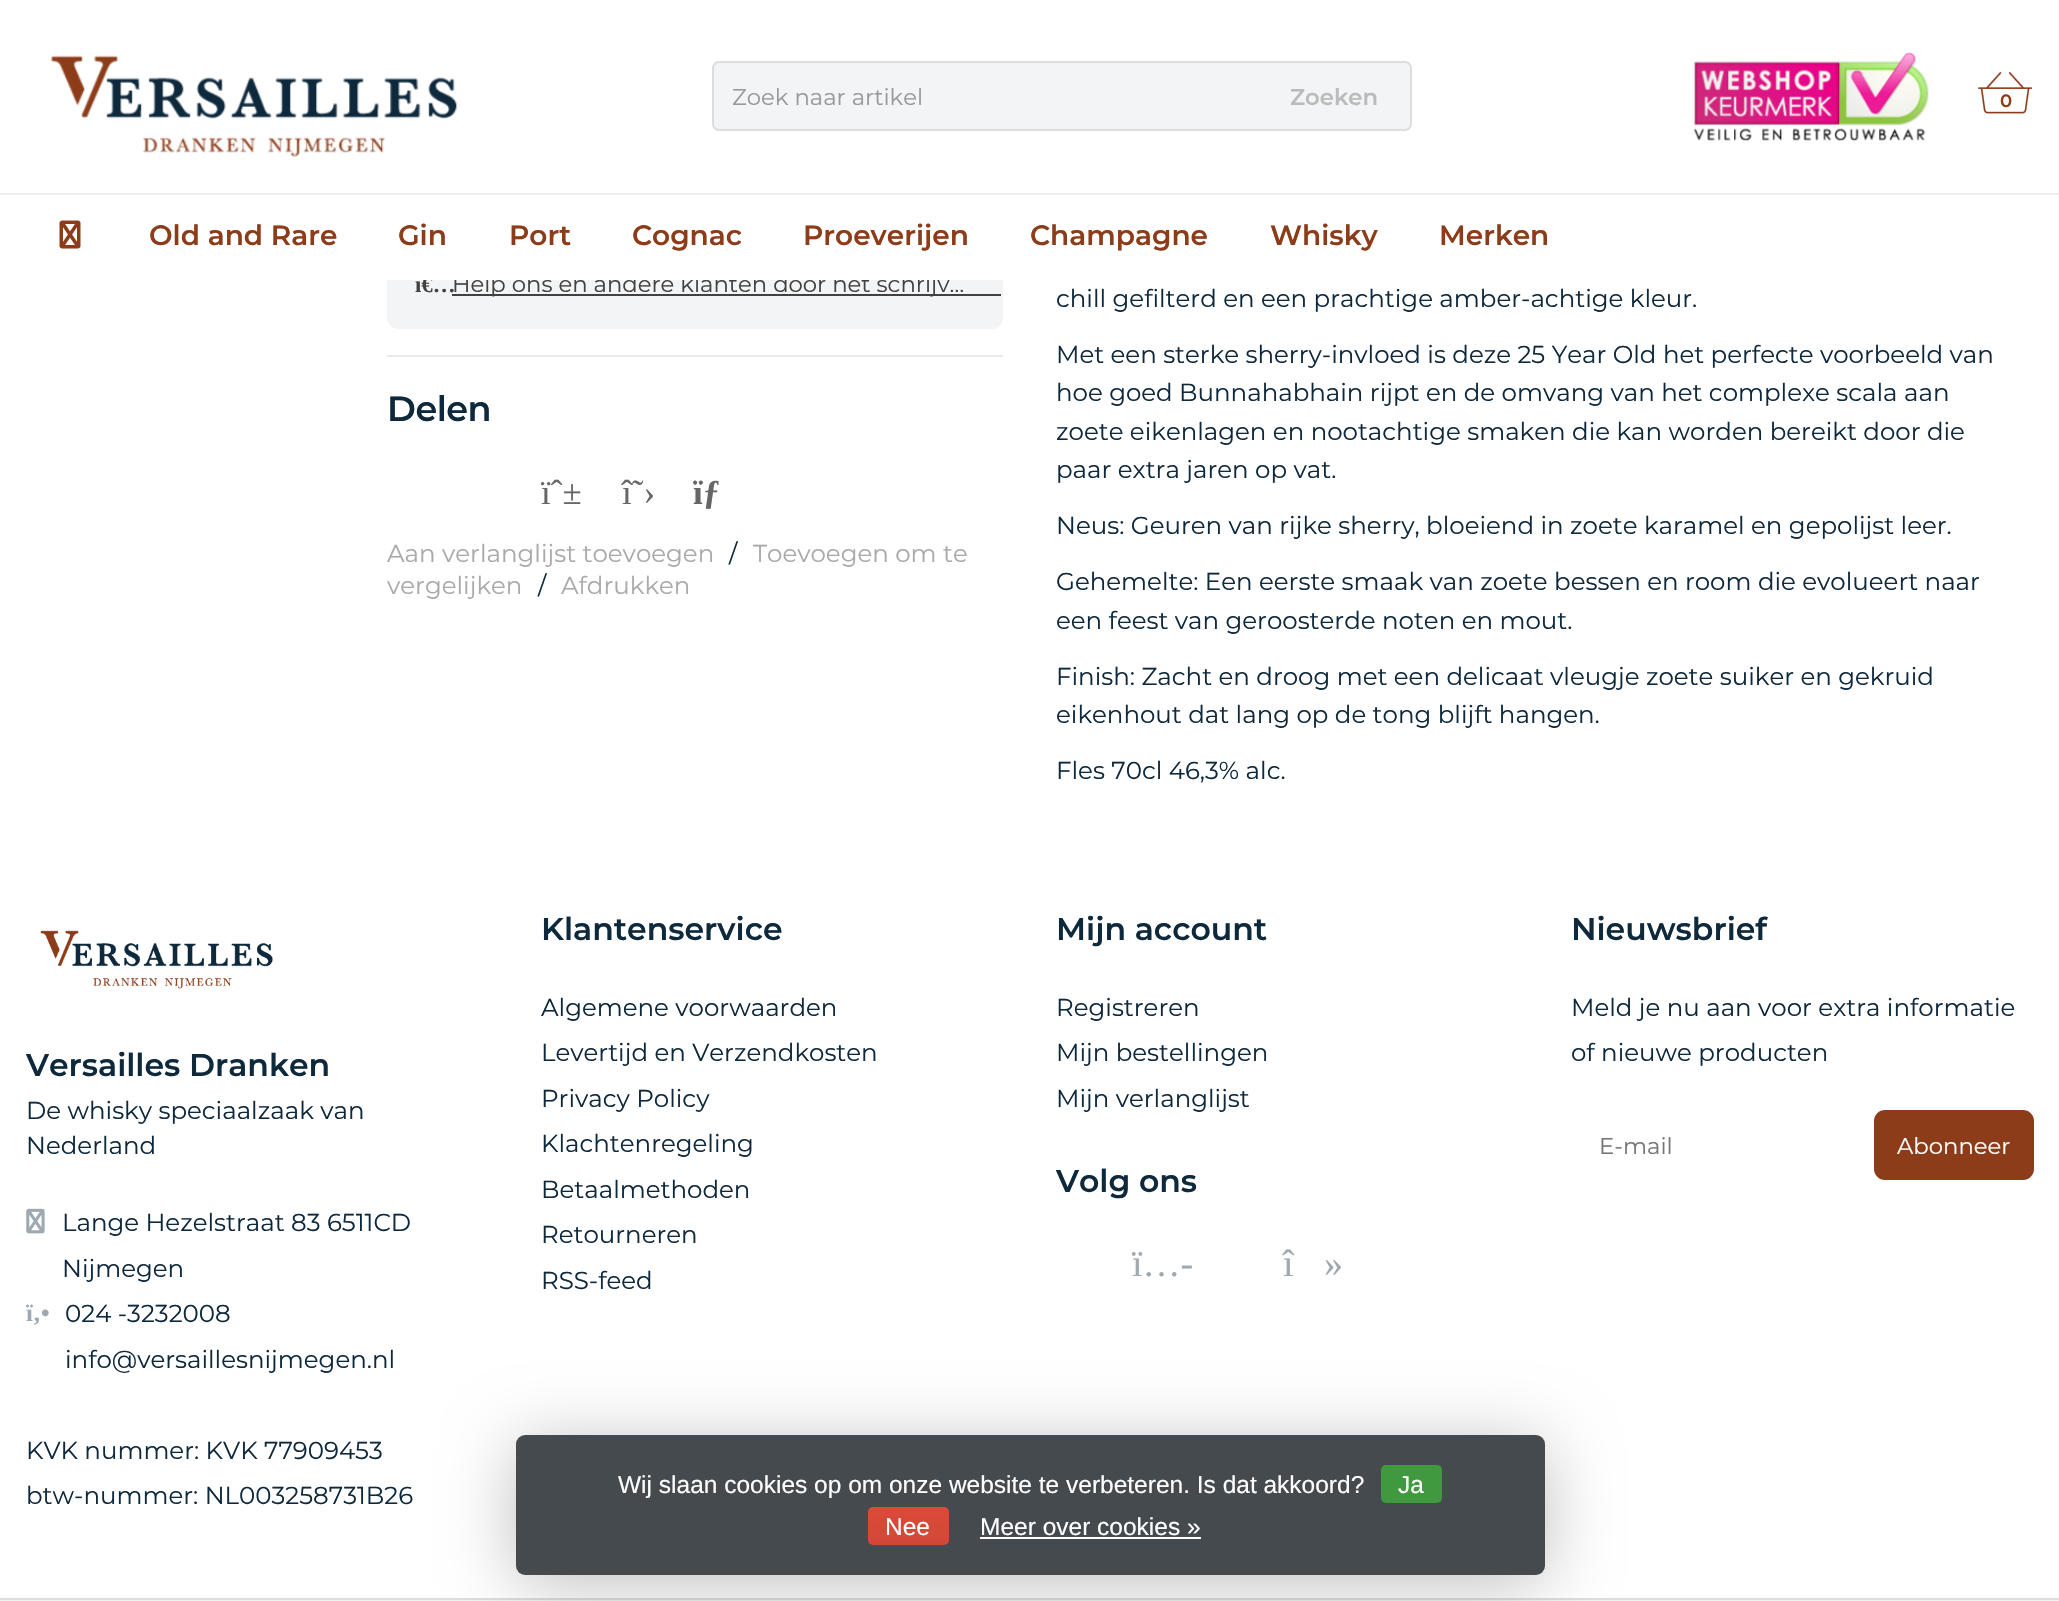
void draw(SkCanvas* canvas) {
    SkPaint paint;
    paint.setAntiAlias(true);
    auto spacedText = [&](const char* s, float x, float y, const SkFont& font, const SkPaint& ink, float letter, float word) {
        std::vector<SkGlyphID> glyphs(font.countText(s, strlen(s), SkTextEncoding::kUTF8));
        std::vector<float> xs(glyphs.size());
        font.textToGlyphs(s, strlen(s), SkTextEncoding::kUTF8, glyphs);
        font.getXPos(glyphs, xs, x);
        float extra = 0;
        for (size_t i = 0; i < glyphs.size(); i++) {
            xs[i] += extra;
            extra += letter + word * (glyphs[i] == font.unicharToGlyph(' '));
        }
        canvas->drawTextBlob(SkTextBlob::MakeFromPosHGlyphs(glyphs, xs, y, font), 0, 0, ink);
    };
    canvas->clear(0xFFFFFFFF);
    paint.setColor(0xFFF3F4F5);
    canvas->drawRoundRect(SkRect::MakeXYWH(387, 238, 616, 91), 11, 11, paint);
    SkFont font1(fontMgr->matchFamilyStyle("Liberation Serif", SkFontStyle::Bold()), 22.75f);
    font1.setSubpixel(true);
    paint.setColor(0xFF414141);
    canvas->drawString("ï€…", 415, 292, font1, paint);
    canvas->drawRect(SkRect::MakeXYWH(452, 294, 549, 2), paint);
    SkFont font2(fontMgr->matchFamilyStyle("Montserrat", SkFontStyle::Normal()), 22.75f);
    font2.setSubpixel(true);
    canvas->drawString("Help ons en andere klanten door het schrijv…", 452, 292, font2, paint);
    paint.setColor(0xFFFFFFFF);
    canvas->drawRect(SkRect::MakeXYWH(387, 238, 616, 42), paint);
    canvas->drawImageRect(SkImages::DeferredFromEncodedData(SkData::MakeFromFileName("img1.png")), SkRect::MakeXYWH(51, 55, 407, 102), SkSamplingOptions());
    paint.setColor(0xFFF3F4F5);
    canvas->drawRoundRect(SkRect::MakeXYWH(713, 62, 698, 68), 6, 6, paint);
    paint.setStyle(SkPaint::kStroke_Style);
    paint.setStrokeWidth(2);
    paint.setColor(0xFFDDDDDD);
    canvas->drawRoundRect(SkRect::MakeXYWH(713, 62, 698, 68), 6, 6, paint);
    paint.setStyle(SkPaint::kFill_Style);
    paint.setColor(0xFF999999);
    canvas->drawString("Zoek naar artikel", 732, 105, font2, paint);
    SkFont font3(fontMgr->matchFamilyStyle("Montserrat", SkFontStyle(600, SkFontStyle::kNormal_Width, SkFontStyle::kUpright_Slant)), 22.75f);
    font3.setSubpixel(true);
    paint.setColor(0xFFBBBBBB);
    canvas->drawString("Zoeken", 1290, 105, font3, paint);
    canvas->drawImageRect(SkImages::DeferredFromEncodedData(SkData::MakeFromFileName("img2.png")), SkRect::MakeXYWH(1693, 52, 236, 89), SkSamplingOptions());
    canvas->drawImageRect(SkImages::DeferredFromEncodedData(SkData::MakeFromFileName("img3.png")), SkRect::MakeXYWH(1978, 72, 54, 42), SkSamplingOptions());
    paint.setColor(0xFFFFFFFF);
    canvas->drawRect(SkRect::MakeXYWH(1993, 94, 24, 13), paint);
    SkFont font4(fontMgr->matchFamilyStyle("Montserrat", SkFontStyle(600, SkFontStyle::kNormal_Width, SkFontStyle::kUpright_Slant)), 18);
    font4.setSubpixel(true);
    paint.setColor(0xFF8D3C19);
    canvas->drawString("0", 2000, 107, font4, paint);
    canvas->drawImageRect(SkImages::DeferredFromEncodedData(SkData::MakeFromFileName("img4.png")), SkRect::MakeXYWH(59, 220, 22, 29), SkSamplingOptions());
    SkFont font5(fontMgr->matchFamilyStyle("Montserrat", SkFontStyle(600, SkFontStyle::kNormal_Width, SkFontStyle::kUpright_Slant)), 28);
    font5.setSubpixel(true);
    canvas->drawString("Old and Rare", 149, 245, font5, paint);
    canvas->drawString("Gin", 398, 245, font5, paint);
    canvas->drawString("Port", 509, 245, font5, paint);
    canvas->drawString("Cognac", 632, 245, font5, paint);
    canvas->drawString("Proeverijen", 803, 245, font5, paint);
    canvas->drawString("Champagne", 1030, 245, font5, paint);
    canvas->drawString("Whisky", 1270, 245, font5, paint);
    canvas->drawString("Merken", 1439, 245, font5, paint);
    paint.setColor(0xFFEEEEEE);
    canvas->drawRect(SkRect::MakeXYWH(0, 193, 2059, 2), paint);
    paint.setColor(0xFFEAEAEA);
    canvas->drawRect(SkRect::MakeXYWH(387, 355, 616, 2), paint);
    SkFont font6(fontMgr->matchFamilyStyle("Montserrat", SkFontStyle(600, SkFontStyle::kNormal_Width, SkFontStyle::kUpright_Slant)), 35);
    font6.setSubpixel(true);
    paint.setColor(0xFF0E283C);
    spacedText("Delen", 387, 421, font6, paint, -0.5f, 0);
    SkFont font7(fontMgr->matchFamilyStyle("Liberation Serif", SkFontStyle::Normal()), 35);
    font7.setSubpixel(true);
    paint.setColor(0xFF666666);
    canvas->drawString("ïˆ±", 541, 504, font7, paint);
    canvas->drawString("î˜›", 622, 504, font7, paint);
    SkFont font8(fontMgr->matchFamilyStyle("Liberation Serif", SkFontStyle::Bold()), 35);
    font8.setSubpixel(true);
    canvas->drawString("ïƒ", 693, 504, font8, paint);
    SkFont font9(fontMgr->matchFamilyStyle("Montserrat", SkFontStyle::Normal()), 24.5f);
    font9.setSubpixel(true);
    paint.setColor(0xFFAAAAAA);
    canvas->drawString("Aan verlanglijst toevoegen", 387, 562, font9, paint);
    paint.setColor(0xFF0E283C);
    canvas->drawString("/", 729, 562, font9, paint);
    paint.setColor(0xFFAAAAAA);
    canvas->drawString("Toevoegen om te", 753, 562, font9, paint);
    canvas->drawString("vergelijken", 387, 594, font9, paint);
    paint.setColor(0xFF0E283C);
    canvas->drawString("/", 538, 594, font9, paint);
    paint.setColor(0xFFAAAAAA);
    canvas->drawString("Afdrukken", 561, 594, font9, paint);
    paint.setColor(0xFF0E283C);
    canvas->drawString("chill gefilterd en een prachtige amber-achtige kleur.", 1056, 307, font9, paint);
    canvas->drawString("Met een sterke sherry-invloed is deze 25 Year Old het perfecte voorbeeld van", 1056, 363, font9, paint);
    canvas->drawString("hoe goed Bunnahabhain rijpt en de omvang van het complexe scala aan", 1056, 401, font9, paint);
    canvas->drawString("zoete eikenlagen en nootachtige smaken die kan worden bereikt door die", 1056, 440, font9, paint);
    canvas->drawString("paar extra jaren op vat.", 1056, 478, font9, paint);
    canvas->drawString("Neus: Geuren van rijke sherry, bloeiend in zoete karamel en gepolijst leer.", 1056, 534, font9, paint);
    canvas->drawString("Gehemelte: Een eerste smaak van zoete bessen en room die evolueert naar", 1056, 590, font9, paint);
    canvas->drawString("een feest van geroosterde noten en mout.", 1056, 629, font9, paint);
    canvas->drawString("Finish: Zacht en droog met een delicaat vleugje zoete suiker en gekruid", 1056, 685, font9, paint);
    canvas->drawString("eikenhout dat lang op de tong blijft hangen.", 1056, 723, font9, paint);
    canvas->drawString("Fles 70cl 46,3% alc.", 1056, 779, font9, paint);
    canvas->drawImageRect(SkImages::DeferredFromEncodedData(SkData::MakeFromFileName("img5.png")), SkRect::MakeXYWH(40, 930, 233, 59), SkSamplingOptions());
    SkFont font10(fontMgr->matchFamilyStyle("Montserrat", SkFontStyle(600, SkFontStyle::kNormal_Width, SkFontStyle::kUpright_Slant)), 31.5f);
    font10.setSubpixel(true);
    canvas->drawString("Versailles Dranken", 26, 1076, font10, paint);
    canvas->drawString("De whisky speciaalzaak van", 26, 1119, font9, paint);
    canvas->drawString("Nederland", 26, 1154, font9, paint);
    canvas->drawImageRect(SkImages::DeferredFromEncodedData(SkData::MakeFromFileName("img6.png")), SkRect::MakeXYWH(26, 1208, 19, 26), SkSamplingOptions());
    canvas->drawString("Lange Hezelstraat 83 6511CD", 62, 1231, font9, paint);
    canvas->drawString("Nijmegen", 62, 1277, font9, paint);
    SkFont font11(fontMgr->matchFamilyStyle("Liberation Serif", SkFontStyle::Bold()), 24.5f);
    font11.setSubpixel(true);
    paint.setColor(0xFF9FA9B1);
    canvas->drawString("ï‚•", 26, 1321, font11, paint);
    paint.setColor(0xFF0E283C);
    canvas->drawString("024 -3232008", 65, 1322, font9, paint);
    canvas->drawString("info@versaillesnijmegen.nl", 65, 1368, font9, paint);
    canvas->drawString("KVK nummer: KVK 77909453", 26, 1459, font9, paint);
    canvas->drawString("btw-nummer: NL003258731B26", 26, 1504, font9, paint);
    canvas->drawString("Klantenservice", 541, 940, font10, paint);
    canvas->drawString("Algemene voorwaarden", 541, 1016, font9, paint);
    canvas->drawString("Levertijd en Verzendkosten", 541, 1061, font9, paint);
    canvas->drawString("Privacy Policy", 541, 1107, font9, paint);
    canvas->drawString("Klachtenregeling", 541, 1152, font9, paint);
    canvas->drawString("Betaalmethoden", 541, 1198, font9, paint);
    canvas->drawString("Retourneren", 541, 1243, font9, paint);
    canvas->drawString("RSS-feed", 541, 1289, font9, paint);
    canvas->drawString("Mijn account", 1056, 940, font10, paint);
    canvas->drawString("Registreren", 1056, 1016, font9, paint);
    canvas->drawString("Mijn bestellingen", 1056, 1061, font9, paint);
    canvas->drawString("Mijn verlanglijst", 1056, 1107, font9, paint);
    canvas->drawString("Volg ons", 1056, 1192, font10, paint);
    SkFont font12(fontMgr->matchFamilyStyle("Liberation Serif", SkFontStyle::Normal()), 38);
    font12.setSubpixel(true);
    paint.setColor(0xFF9FA9B1);
    canvas->drawString("ï…-", 1132, 1276, font12, paint);
    canvas->drawString("î", 1283, 1276, font12, paint);
    canvas->drawString("»", 1324, 1276, font12, paint);
    paint.setColor(0xFF0E283C);
    canvas->drawString("Nieuwsbrief", 1571, 940, font10, paint);
    canvas->drawString("Meld je nu aan voor extra informatie", 1571, 1016, font9, paint);
    canvas->drawString("of nieuwe producten", 1571, 1061, font9, paint);
    paint.setColor(0xFF757575);
    canvas->drawString("E-mail", 1599, 1154, font2, paint);
    paint.setColor(0xFF8D3C19);
    canvas->drawRoundRect(SkRect::MakeXYWH(1875, 1111, 158, 68), 10, 10, paint);
    paint.setStyle(SkPaint::kStroke_Style);
    canvas->drawRoundRect(SkRect::MakeXYWH(1875, 1111, 158, 68), 10, 10, paint);
    paint.setStyle(SkPaint::kFill_Style);
    paint.setColor(0xFFFFFFFF);
    canvas->drawString("Abonneer", 1897, 1154, font2, paint);
    paint.setColor(0xFFDDDDDD);
    canvas->drawRect(SkRect::MakeXYWH(0, 1598, 2059, 2), paint);
    paint.setColor(0xFFF2F2F2);
    canvas->drawRect(SkRect::MakeXYWH(0, 1600, 2059, 1), paint);
    canvas->save();
    canvas->clipPath(SkPathBuilder(SkPathFillType::kEvenOdd).moveTo(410, 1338).lineTo(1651, 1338).lineTo(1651, 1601).lineTo(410, 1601).close().moveTo(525, 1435).lineTo(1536, 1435).cubicTo(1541, 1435, 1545, 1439, 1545, 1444).lineTo(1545, 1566).cubicTo(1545, 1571, 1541, 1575, 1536, 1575).lineTo(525, 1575).cubicTo(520, 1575, 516, 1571, 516, 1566).lineTo(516, 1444).cubicTo(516, 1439, 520, 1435, 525, 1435).close().detach(), true);
    paint.setColor(0x40000000);
    paint.setMaskFilter(SkMaskFilter::MakeBlur(kNormal_SkBlurStyle, 35));
    canvas->drawRoundRect(SkRect::MakeXYWH(516, 1444, 1029, 140), 9, 9, paint);
    paint.setMaskFilter(nullptr);
    canvas->restore();
    paint.setColor(0xD9242A30);
    canvas->drawRoundRect(SkRect::MakeXYWH(516, 1435, 1029, 140), 9, 9, paint);
    SkFont font13(fontMgr->matchFamilyStyle("Liberation Sans", SkFontStyle::Normal()), 24.5f);
    font13.setSubpixel(true);
    paint.setColor(0xFFFFFFFF);
    canvas->drawString("Wij slaan cookies op om onze website te verbeteren. Is dat akkoord?", 618, 1493, font13, paint);
    paint.setColor(0xFF40983F);
    canvas->drawRoundRect(SkRect::MakeXYWH(1381, 1465, 61, 38), 5, 5, paint);
    paint.setColor(0xFFFFFFFF);
    canvas->drawString("Ja", 1398, 1493, font13, paint);
    {
        const SkColor colors[] = {0xFFDC4A38, 0xFFD14836};
        const float stops[] = {0, 1};
        const SkPoint ends[] = {{908, 1507}, {908, 1545}};
        paint.setShader(SkGradientShader::MakeLinear(ends, colors, stops, 2, SkTileMode::kClamp));
        paint.setAlpha(255);
    }
    canvas->drawRoundRect(SkRect::MakeXYWH(868, 1507, 81, 38), 5, 5, paint);
    paint.setShader(nullptr);
    paint.setColor(0xFFFFFFFF);
    canvas->drawString("Nee", 885, 1535, font13, paint);
    canvas->drawString("Meer over cookies »", 980, 1535, font13, paint);
    canvas->drawRect(SkRect::MakeXYWH(980, 1537, 221, 2), paint);
}
